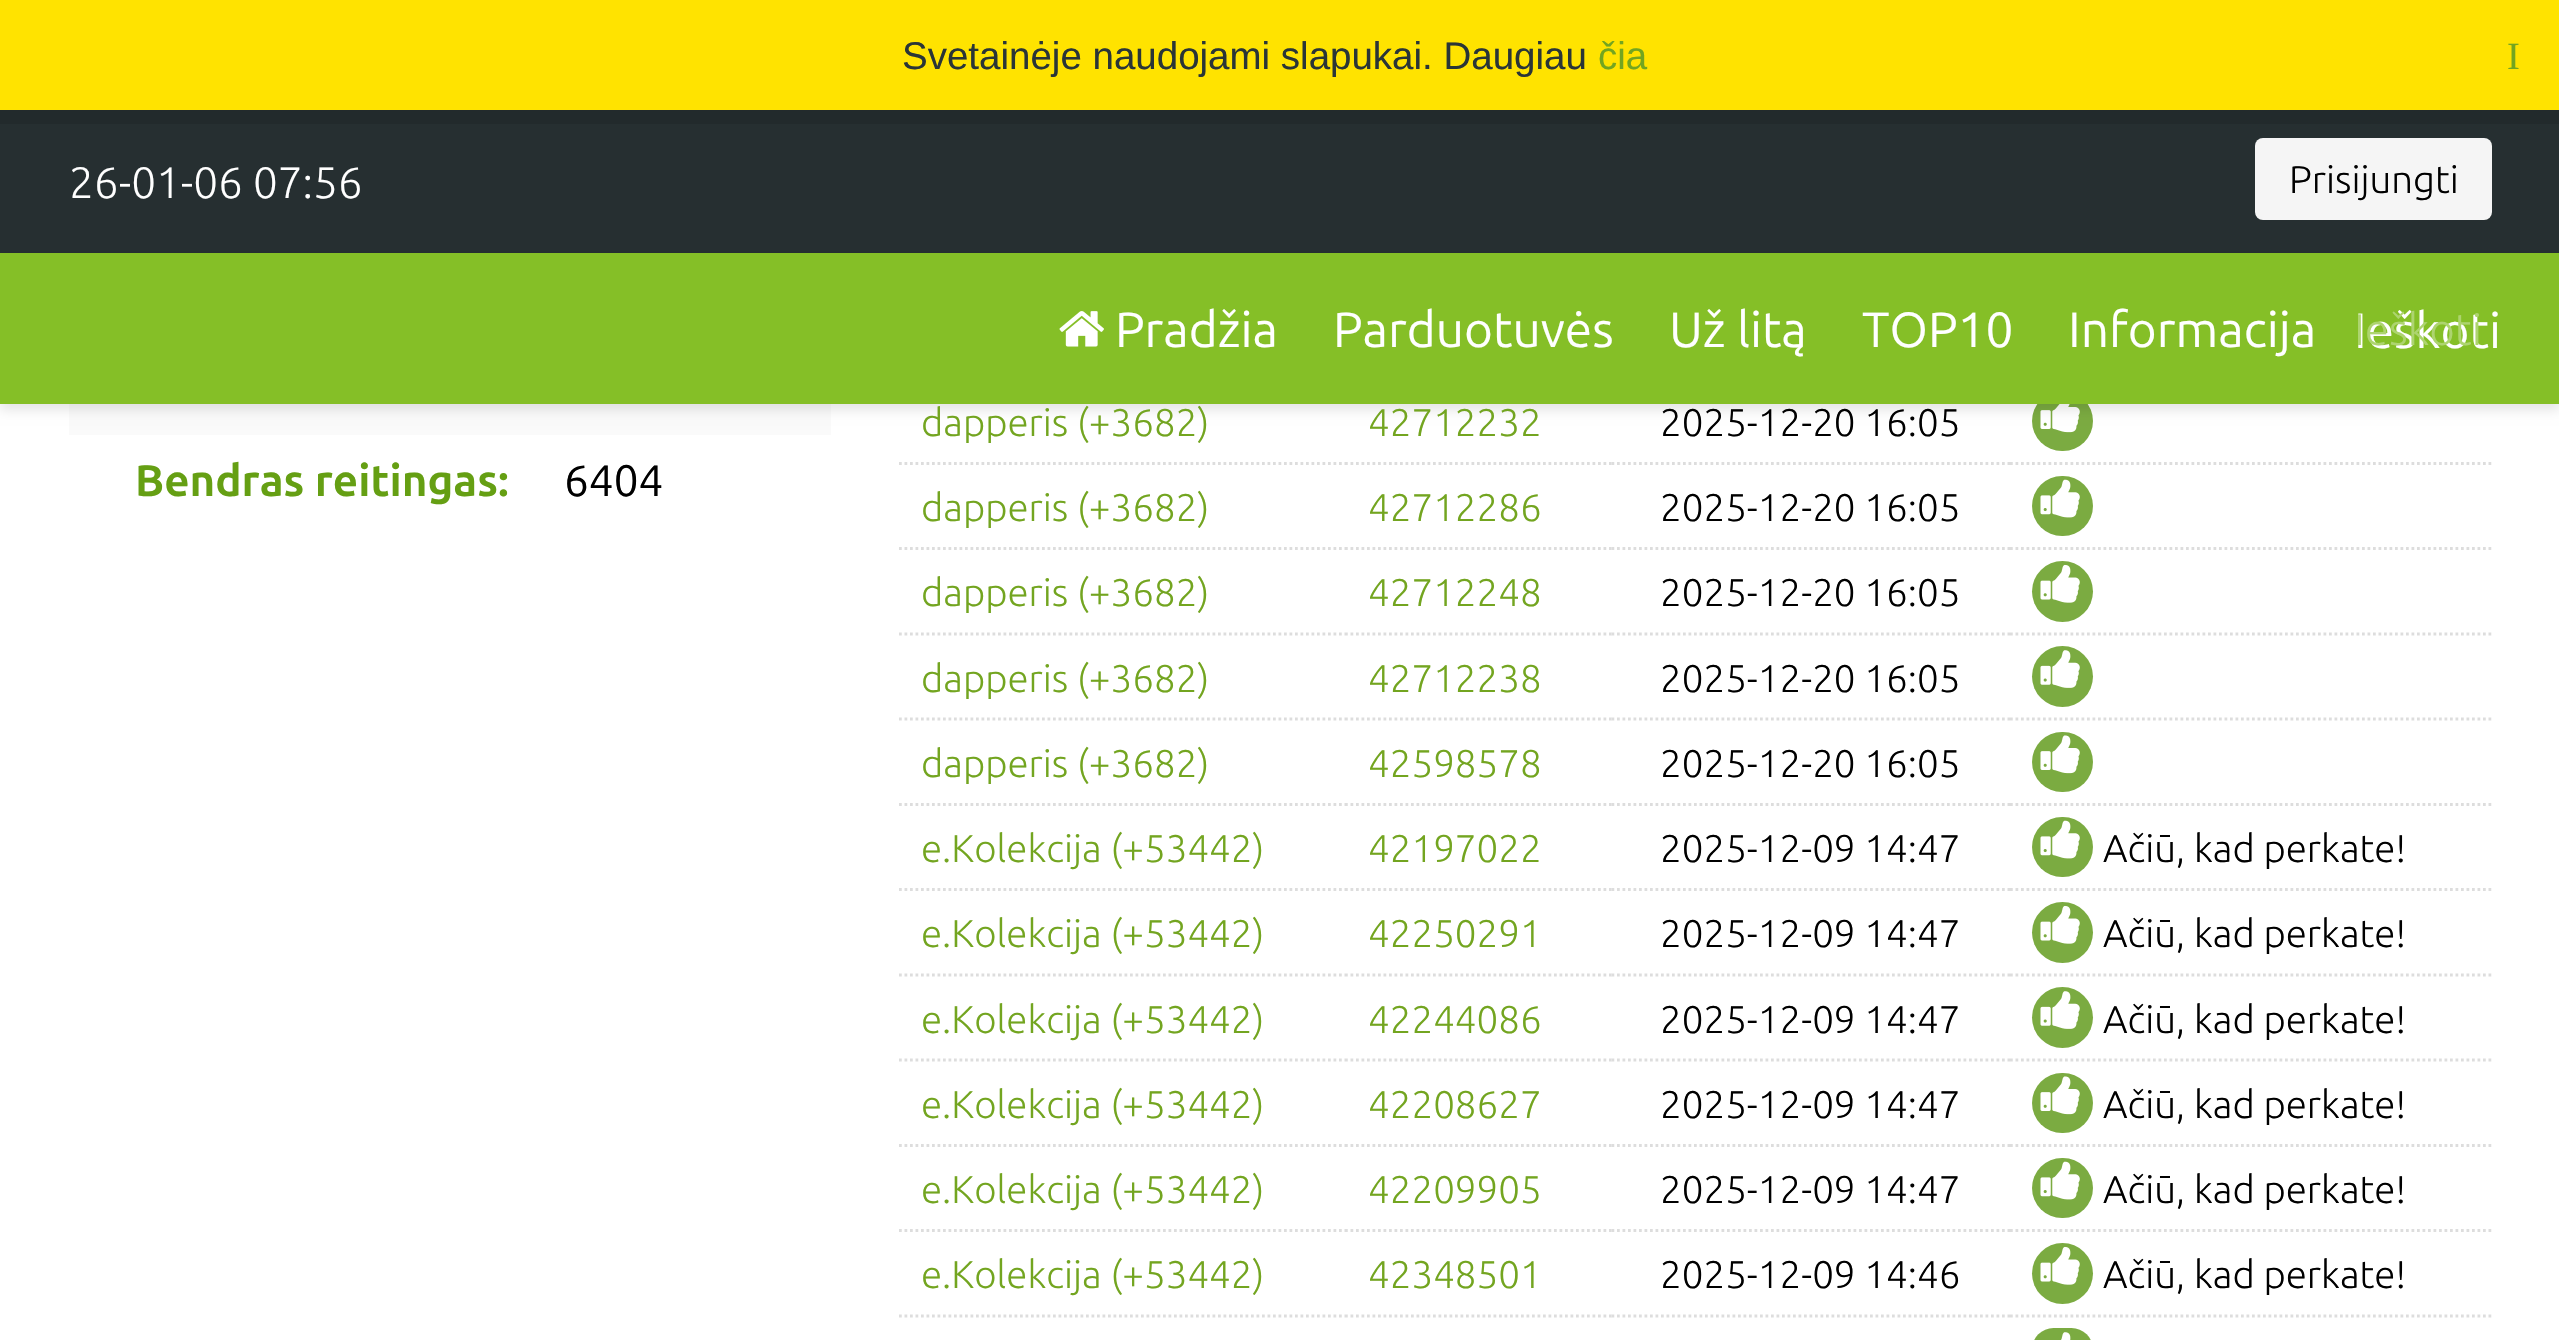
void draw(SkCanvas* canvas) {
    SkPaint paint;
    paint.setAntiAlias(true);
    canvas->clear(0xFFFFFFFF);
    paint.setColor(0xFF222A2C);
    canvas->drawRect(SkRect::MakeXYWH(0, 110, 2559, 14), paint);
    paint.setColor(0xFFFFE300);
    canvas->drawRect(SkRect::MakeXYWH(0, 0, 2559, 110), paint);
    SkFont font1(fontMgr->matchFamilyStyle("Liberation Sans", SkFontStyle::Normal()), 38.5f);
    font1.setSubpixel(true);
    paint.setColor(0xFF2A3537);
    canvas->drawString("Svetainėje naudojami slapukai. Daugiau", 902, 69, font1, paint);
    paint.setColor(0xFF73A520);
    canvas->drawString("čia", 1598, 69, font1, paint);
    SkFont font2(fontMgr->matchFamilyStyle("Liberation Serif", SkFontStyle::Normal()), 38.5f);
    font2.setSubpixel(true);
    canvas->drawString("I", 2507, 69, font2, paint);
    paint.setColor(0xFF262F31);
    canvas->drawRect(SkRect::MakeXYWH(0, 124, 2559, 129), paint);
    SkFont font3(fontMgr->matchFamilyStyle("Ubuntu", SkFontStyle(300, SkFontStyle::kNormal_Width, SkFontStyle::kUpright_Slant)), 44);
    font3.setSubpixel(true);
    paint.setColor(0xFFFFFFFF);
    canvas->drawString("26-01-06 07:56", 69, 198, font3, paint);
    paint.setColor(0xFFF5F5F5);
    canvas->drawRoundRect(SkRect::MakeXYWH(2255, 138, 237, 82), 8, 8, paint);
    SkFont font4(fontMgr->matchFamilyStyle("Ubuntu", SkFontStyle(300, SkFontStyle::kNormal_Width, SkFontStyle::kUpright_Slant)), 38.5f);
    font4.setSubpixel(true);
    paint.setColor(0xFF000000);
    canvas->drawString("Prisijungti", 2289, 193, font4, paint);
    paint.setColor(0xFFFAFAFA);
    canvas->drawRect(SkRect::MakeXYWH(69, 404, 762, 31), paint);
    paint.setColor(0xFF7BAB41);
    canvas->drawRoundRect(SkRect::MakeXYWH(2032, 391, 61, 60), 30, 30, paint);
    canvas->drawImageRect(SkImages::DeferredFromEncodedData(SkData::MakeFromFileName("img2.png")), SkRect::MakeXYWH(2040, 404, 40, 29), SkSamplingOptions());
    paint.setColor(0x1A000000);
    paint.setMaskFilter(SkMaskFilter::MakeBlur(kNormal_SkBlurStyle, 5.5f));
    canvas->drawRect(SkRect::MakeXYWH(0, 259, 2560, 151), paint);
    paint.setMaskFilter(nullptr);
    paint.setColor(0xFF85BF27);
    canvas->drawRect(SkRect::MakeXYWH(0, 253, 2559, 151), paint);
    canvas->drawImageRect(SkImages::DeferredFromEncodedData(SkData::MakeFromFileName("img1.png")), SkRect::MakeXYWH(1059, 311, 45, 36), SkSamplingOptions());
    SkFont font5(fontMgr->matchFamilyStyle("Ubuntu", SkFontStyle::Normal()), 49.5f);
    font5.setSubpixel(true);
    paint.setColor(0xFFFFFFFF);
    canvas->drawString("Pradžia", 1115, 347, font5, paint);
    canvas->drawString("Parduotuvės", 1333, 347, font5, paint);
    canvas->drawString("Už litą", 1669, 347, font5, paint);
    canvas->drawString("TOP10", 1862, 347, font5, paint);
    canvas->drawString("Informacija", 2068, 347, font5, paint);
    canvas->drawString("Ieškoti", 2354, 348, font5, paint);
    paint.setColor(0xFFADD46F);
    canvas->drawString("Ieškoti", 2354, 345, font3, paint);
    SkFont font6(fontMgr->matchFamilyStyle("Ubuntu", SkFontStyle::Bold()), 44);
    font6.setSubpixel(true);
    paint.setColor(0xFF659F13);
    canvas->drawString("Bendras reitingas:", 135, 496, font6, paint);
    SkFont font7(fontMgr->matchFamilyStyle("Ubuntu", SkFontStyle::Normal()), 44);
    font7.setSubpixel(true);
    paint.setColor(0xFF000000);
    canvas->drawString("6404", 564, 496, font7, paint);
    paint.setStyle(SkPaint::kStroke_Style);
    paint.setStrokeWidth(2.8f);
    paint.setColor(0xFFDDDDDD);
    paint.setPathEffect(SkDashPathEffect::Make({{2.75f, 2.75f}}, 0));
    canvas->drawPath(SkPathBuilder().moveTo(899, 463.5f).lineTo(1345, 463.5f).detach(), paint);
    paint.setPathEffect(nullptr);
    paint.setStyle(SkPaint::kFill_Style);
    paint.setColor(0xFF73A520);
    canvas->drawString("dapperis (+3682)", 921, 436, font4, paint);
    paint.setStyle(SkPaint::kStroke_Style);
    paint.setColor(0xFFDDDDDD);
    paint.setPathEffect(SkDashPathEffect::Make({{2.75f, 2.75f}}, 0));
    canvas->drawPath(SkPathBuilder().moveTo(1345, 463.5f).lineTo(1611.5f, 463.5f).detach(), paint);
    paint.setPathEffect(nullptr);
    paint.setStyle(SkPaint::kFill_Style);
    paint.setColor(0xFF73A520);
    canvas->drawString("42712232", 1368, 436, font4, paint);
    paint.setStyle(SkPaint::kStroke_Style);
    paint.setColor(0xFFDDDDDD);
    paint.setPathEffect(SkDashPathEffect::Make({{2.75f, 2.75f}}, 0));
    canvas->drawPath(SkPathBuilder().moveTo(1611.5f, 463.5f).lineTo(2010, 463.5f).detach(), paint);
    paint.setPathEffect(nullptr);
    paint.setStyle(SkPaint::kFill_Style);
    paint.setColor(0xFF000000);
    canvas->drawString("2025-12-20 16:05", 1660, 436, font4, paint);
    paint.setStyle(SkPaint::kStroke_Style);
    paint.setColor(0xFFDDDDDD);
    paint.setPathEffect(SkDashPathEffect::Make({{2.75f, 2.75f}}, 0));
    canvas->drawPath(SkPathBuilder().moveTo(2010, 463.5f).lineTo(2491.5f, 463.5f).detach(), paint);
    paint.setPathEffect(nullptr);
    paint.setPathEffect(SkDashPathEffect::Make({{2.75f, 2.75f}}, 0));
    canvas->drawPath(SkPathBuilder().moveTo(899, 548.5f).lineTo(1345, 548.5f).detach(), paint);
    paint.setPathEffect(nullptr);
    paint.setStyle(SkPaint::kFill_Style);
    paint.setColor(0xFF73A520);
    canvas->drawString("dapperis (+3682)", 921, 521, font4, paint);
    paint.setStyle(SkPaint::kStroke_Style);
    paint.setColor(0xFFDDDDDD);
    paint.setPathEffect(SkDashPathEffect::Make({{2.75f, 2.75f}}, 0));
    canvas->drawPath(SkPathBuilder().moveTo(1345, 548.5f).lineTo(1611.5f, 548.5f).detach(), paint);
    paint.setPathEffect(nullptr);
    paint.setStyle(SkPaint::kFill_Style);
    paint.setColor(0xFF73A520);
    canvas->drawString("42712286", 1368, 521, font4, paint);
    paint.setStyle(SkPaint::kStroke_Style);
    paint.setColor(0xFFDDDDDD);
    paint.setPathEffect(SkDashPathEffect::Make({{2.75f, 2.75f}}, 0));
    canvas->drawPath(SkPathBuilder().moveTo(1611.5f, 548.5f).lineTo(2010, 548.5f).detach(), paint);
    paint.setPathEffect(nullptr);
    paint.setStyle(SkPaint::kFill_Style);
    paint.setColor(0xFF000000);
    canvas->drawString("2025-12-20 16:05", 1660, 521, font4, paint);
    paint.setStyle(SkPaint::kStroke_Style);
    paint.setColor(0xFFDDDDDD);
    paint.setPathEffect(SkDashPathEffect::Make({{2.75f, 2.75f}}, 0));
    canvas->drawPath(SkPathBuilder().moveTo(2010, 548.5f).lineTo(2491.5f, 548.5f).detach(), paint);
    paint.setPathEffect(nullptr);
    paint.setStyle(SkPaint::kFill_Style);
    paint.setColor(0xFF7BAB41);
    canvas->drawRoundRect(SkRect::MakeXYWH(2032, 476, 61, 60), 30, 30, paint);
    canvas->drawImageRect(SkImages::DeferredFromEncodedData(SkData::MakeFromFileName("img3.png")), SkRect::MakeXYWH(2040, 479, 40, 39), SkSamplingOptions());
    paint.setStyle(SkPaint::kStroke_Style);
    paint.setColor(0xFFDDDDDD);
    paint.setPathEffect(SkDashPathEffect::Make({{2.75f, 2.75f}}, 0));
    canvas->drawPath(SkPathBuilder().moveTo(899, 634).lineTo(1345, 634).detach(), paint);
    paint.setPathEffect(nullptr);
    paint.setStyle(SkPaint::kFill_Style);
    paint.setColor(0xFF73A520);
    canvas->drawString("dapperis (+3682)", 921, 606, font4, paint);
    paint.setStyle(SkPaint::kStroke_Style);
    paint.setColor(0xFFDDDDDD);
    paint.setPathEffect(SkDashPathEffect::Make({{2.75f, 2.75f}}, 0));
    canvas->drawPath(SkPathBuilder().moveTo(1345, 634).lineTo(1611.5f, 634).detach(), paint);
    paint.setPathEffect(nullptr);
    paint.setStyle(SkPaint::kFill_Style);
    paint.setColor(0xFF73A520);
    canvas->drawString("42712248", 1368, 606, font4, paint);
    paint.setStyle(SkPaint::kStroke_Style);
    paint.setColor(0xFFDDDDDD);
    paint.setPathEffect(SkDashPathEffect::Make({{2.75f, 2.75f}}, 0));
    canvas->drawPath(SkPathBuilder().moveTo(1611.5f, 634).lineTo(2010, 634).detach(), paint);
    paint.setPathEffect(nullptr);
    paint.setStyle(SkPaint::kFill_Style);
    paint.setColor(0xFF000000);
    canvas->drawString("2025-12-20 16:05", 1660, 606, font4, paint);
    paint.setStyle(SkPaint::kStroke_Style);
    paint.setColor(0xFFDDDDDD);
    paint.setPathEffect(SkDashPathEffect::Make({{2.75f, 2.75f}}, 0));
    canvas->drawPath(SkPathBuilder().moveTo(2010, 634).lineTo(2491.5f, 634).detach(), paint);
    paint.setPathEffect(nullptr);
    paint.setStyle(SkPaint::kFill_Style);
    paint.setColor(0xFF7BAB41);
    canvas->drawCircle(2062.5f, 591.5f, 30.5f, paint);
    canvas->drawImageRect(SkImages::DeferredFromEncodedData(SkData::MakeFromFileName("img4.png")), SkRect::MakeXYWH(2040, 564, 40, 39), SkSamplingOptions());
    paint.setStyle(SkPaint::kStroke_Style);
    paint.setColor(0xFFDDDDDD);
    paint.setPathEffect(SkDashPathEffect::Make({{2.75f, 2.75f}}, 0));
    canvas->drawPath(SkPathBuilder().moveTo(899, 719).lineTo(1345, 719).detach(), paint);
    paint.setPathEffect(nullptr);
    paint.setStyle(SkPaint::kFill_Style);
    paint.setColor(0xFF73A520);
    canvas->drawString("dapperis (+3682)", 921, 692, font4, paint);
    paint.setStyle(SkPaint::kStroke_Style);
    paint.setColor(0xFFDDDDDD);
    paint.setPathEffect(SkDashPathEffect::Make({{2.75f, 2.75f}}, 0));
    canvas->drawPath(SkPathBuilder().moveTo(1345, 719).lineTo(1611.5f, 719).detach(), paint);
    paint.setPathEffect(nullptr);
    paint.setStyle(SkPaint::kFill_Style);
    paint.setColor(0xFF73A520);
    canvas->drawString("42712238", 1368, 692, font4, paint);
    paint.setStyle(SkPaint::kStroke_Style);
    paint.setColor(0xFFDDDDDD);
    paint.setPathEffect(SkDashPathEffect::Make({{2.75f, 2.75f}}, 0));
    canvas->drawPath(SkPathBuilder().moveTo(1611.5f, 719).lineTo(2010, 719).detach(), paint);
    paint.setPathEffect(nullptr);
    paint.setStyle(SkPaint::kFill_Style);
    paint.setColor(0xFF000000);
    canvas->drawString("2025-12-20 16:05", 1660, 692, font4, paint);
    paint.setStyle(SkPaint::kStroke_Style);
    paint.setColor(0xFFDDDDDD);
    paint.setPathEffect(SkDashPathEffect::Make({{2.75f, 2.75f}}, 0));
    canvas->drawPath(SkPathBuilder().moveTo(2010, 719).lineTo(2491.5f, 719).detach(), paint);
    paint.setPathEffect(nullptr);
    paint.setStyle(SkPaint::kFill_Style);
    paint.setColor(0xFF7BAB41);
    canvas->drawCircle(2062.5f, 676.5f, 30.5f, paint);
    canvas->drawImageRect(SkImages::DeferredFromEncodedData(SkData::MakeFromFileName("img5.png")), SkRect::MakeXYWH(2040, 650, 40, 38), SkSamplingOptions());
    paint.setStyle(SkPaint::kStroke_Style);
    paint.setColor(0xFFDDDDDD);
    paint.setPathEffect(SkDashPathEffect::Make({{2.75f, 2.75f}}, 0));
    canvas->drawPath(SkPathBuilder().moveTo(899, 804.5f).lineTo(1345, 804.5f).detach(), paint);
    paint.setPathEffect(nullptr);
    paint.setStyle(SkPaint::kFill_Style);
    paint.setColor(0xFF73A520);
    canvas->drawString("dapperis (+3682)", 921, 777, font4, paint);
    paint.setStyle(SkPaint::kStroke_Style);
    paint.setColor(0xFFDDDDDD);
    paint.setPathEffect(SkDashPathEffect::Make({{2.75f, 2.75f}}, 0));
    canvas->drawPath(SkPathBuilder().moveTo(1345, 804.5f).lineTo(1611.5f, 804.5f).detach(), paint);
    paint.setPathEffect(nullptr);
    paint.setStyle(SkPaint::kFill_Style);
    paint.setColor(0xFF73A520);
    canvas->drawString("42598578", 1368, 777, font4, paint);
    paint.setStyle(SkPaint::kStroke_Style);
    paint.setColor(0xFFDDDDDD);
    paint.setPathEffect(SkDashPathEffect::Make({{2.75f, 2.75f}}, 0));
    canvas->drawPath(SkPathBuilder().moveTo(1611.5f, 804.5f).lineTo(2010, 804.5f).detach(), paint);
    paint.setPathEffect(nullptr);
    paint.setStyle(SkPaint::kFill_Style);
    paint.setColor(0xFF000000);
    canvas->drawString("2025-12-20 16:05", 1660, 777, font4, paint);
    paint.setStyle(SkPaint::kStroke_Style);
    paint.setColor(0xFFDDDDDD);
    paint.setPathEffect(SkDashPathEffect::Make({{2.75f, 2.75f}}, 0));
    canvas->drawPath(SkPathBuilder().moveTo(2010, 804.5f).lineTo(2491.5f, 804.5f).detach(), paint);
    paint.setPathEffect(nullptr);
    paint.setStyle(SkPaint::kFill_Style);
    paint.setColor(0xFF7BAB41);
    canvas->drawRoundRect(SkRect::MakeXYWH(2032, 732, 61, 60), 30, 30, paint);
    canvas->drawImageRect(SkImages::DeferredFromEncodedData(SkData::MakeFromFileName("img6.png")), SkRect::MakeXYWH(2040, 735, 40, 39), SkSamplingOptions());
    paint.setStyle(SkPaint::kStroke_Style);
    paint.setColor(0xFFDDDDDD);
    paint.setPathEffect(SkDashPathEffect::Make({{2.75f, 2.75f}}, 0));
    canvas->drawPath(SkPathBuilder().moveTo(899, 889.5f).lineTo(1345, 889.5f).detach(), paint);
    paint.setPathEffect(nullptr);
    paint.setStyle(SkPaint::kFill_Style);
    paint.setColor(0xFF73A520);
    canvas->drawString("e.Kolekcija (+53442)", 921, 862, font4, paint);
    paint.setStyle(SkPaint::kStroke_Style);
    paint.setColor(0xFFDDDDDD);
    paint.setPathEffect(SkDashPathEffect::Make({{2.75f, 2.75f}}, 0));
    canvas->drawPath(SkPathBuilder().moveTo(1345, 889.5f).lineTo(1611.5f, 889.5f).detach(), paint);
    paint.setPathEffect(nullptr);
    paint.setStyle(SkPaint::kFill_Style);
    paint.setColor(0xFF73A520);
    canvas->drawString("42197022", 1368, 862, font4, paint);
    paint.setStyle(SkPaint::kStroke_Style);
    paint.setColor(0xFFDDDDDD);
    paint.setPathEffect(SkDashPathEffect::Make({{2.75f, 2.75f}}, 0));
    canvas->drawPath(SkPathBuilder().moveTo(1611.5f, 889.5f).lineTo(2010, 889.5f).detach(), paint);
    paint.setPathEffect(nullptr);
    paint.setStyle(SkPaint::kFill_Style);
    paint.setColor(0xFF000000);
    canvas->drawString("2025-12-09 14:47", 1660, 862, font4, paint);
    paint.setStyle(SkPaint::kStroke_Style);
    paint.setColor(0xFFDDDDDD);
    paint.setPathEffect(SkDashPathEffect::Make({{2.75f, 2.75f}}, 0));
    canvas->drawPath(SkPathBuilder().moveTo(2010, 889.5f).lineTo(2491.5f, 889.5f).detach(), paint);
    paint.setPathEffect(nullptr);
    paint.setStyle(SkPaint::kFill_Style);
    paint.setColor(0xFF7BAB41);
    canvas->drawRoundRect(SkRect::MakeXYWH(2032, 817, 61, 60), 30, 30, paint);
    canvas->drawImageRect(SkImages::DeferredFromEncodedData(SkData::MakeFromFileName("img3.png")), SkRect::MakeXYWH(2040, 820, 40, 39), SkSamplingOptions());
    paint.setColor(0xFF000000);
    canvas->drawString("Ačiū, kad perkate!", 2103, 862, font4, paint);
    paint.setStyle(SkPaint::kStroke_Style);
    paint.setColor(0xFFDDDDDD);
    paint.setPathEffect(SkDashPathEffect::Make({{2.75f, 2.75f}}, 0));
    canvas->drawPath(SkPathBuilder().moveTo(899, 975).lineTo(1345, 975).detach(), paint);
    paint.setPathEffect(nullptr);
    paint.setStyle(SkPaint::kFill_Style);
    paint.setColor(0xFF73A520);
    canvas->drawString("e.Kolekcija (+53442)", 921, 947, font4, paint);
    paint.setStyle(SkPaint::kStroke_Style);
    paint.setColor(0xFFDDDDDD);
    paint.setPathEffect(SkDashPathEffect::Make({{2.75f, 2.75f}}, 0));
    canvas->drawPath(SkPathBuilder().moveTo(1345, 975).lineTo(1611.5f, 975).detach(), paint);
    paint.setPathEffect(nullptr);
    paint.setStyle(SkPaint::kFill_Style);
    paint.setColor(0xFF73A520);
    canvas->drawString("42250291", 1368, 947, font4, paint);
    paint.setStyle(SkPaint::kStroke_Style);
    paint.setColor(0xFFDDDDDD);
    paint.setPathEffect(SkDashPathEffect::Make({{2.75f, 2.75f}}, 0));
    canvas->drawPath(SkPathBuilder().moveTo(1611.5f, 975).lineTo(2010, 975).detach(), paint);
    paint.setPathEffect(nullptr);
    paint.setStyle(SkPaint::kFill_Style);
    paint.setColor(0xFF000000);
    canvas->drawString("2025-12-09 14:47", 1660, 947, font4, paint);
    paint.setStyle(SkPaint::kStroke_Style);
    paint.setColor(0xFFDDDDDD);
    paint.setPathEffect(SkDashPathEffect::Make({{2.75f, 2.75f}}, 0));
    canvas->drawPath(SkPathBuilder().moveTo(2010, 975).lineTo(2491.5f, 975).detach(), paint);
    paint.setPathEffect(nullptr);
    paint.setStyle(SkPaint::kFill_Style);
    paint.setColor(0xFF7BAB41);
    canvas->drawCircle(2062.5f, 932.5f, 30.5f, paint);
    canvas->drawImageRect(SkImages::DeferredFromEncodedData(SkData::MakeFromFileName("img4.png")), SkRect::MakeXYWH(2040, 905, 40, 39), SkSamplingOptions());
    paint.setColor(0xFF000000);
    canvas->drawString("Ačiū, kad perkate!", 2103, 947, font4, paint);
    paint.setStyle(SkPaint::kStroke_Style);
    paint.setColor(0xFFDDDDDD);
    paint.setPathEffect(SkDashPathEffect::Make({{2.75f, 2.75f}}, 0));
    canvas->drawPath(SkPathBuilder().moveTo(899, 1060).lineTo(1345, 1060).detach(), paint);
    paint.setPathEffect(nullptr);
    paint.setStyle(SkPaint::kFill_Style);
    paint.setColor(0xFF73A520);
    canvas->drawString("e.Kolekcija (+53442)", 921, 1033, font4, paint);
    paint.setStyle(SkPaint::kStroke_Style);
    paint.setColor(0xFFDDDDDD);
    paint.setPathEffect(SkDashPathEffect::Make({{2.75f, 2.75f}}, 0));
    canvas->drawPath(SkPathBuilder().moveTo(1345, 1060).lineTo(1611.5f, 1060).detach(), paint);
    paint.setPathEffect(nullptr);
    paint.setStyle(SkPaint::kFill_Style);
    paint.setColor(0xFF73A520);
    canvas->drawString("42244086", 1368, 1033, font4, paint);
    paint.setStyle(SkPaint::kStroke_Style);
    paint.setColor(0xFFDDDDDD);
    paint.setPathEffect(SkDashPathEffect::Make({{2.75f, 2.75f}}, 0));
    canvas->drawPath(SkPathBuilder().moveTo(1611.5f, 1060).lineTo(2010, 1060).detach(), paint);
    paint.setPathEffect(nullptr);
    paint.setStyle(SkPaint::kFill_Style);
    paint.setColor(0xFF000000);
    canvas->drawString("2025-12-09 14:47", 1660, 1033, font4, paint);
    paint.setStyle(SkPaint::kStroke_Style);
    paint.setColor(0xFFDDDDDD);
    paint.setPathEffect(SkDashPathEffect::Make({{2.75f, 2.75f}}, 0));
    canvas->drawPath(SkPathBuilder().moveTo(2010, 1060).lineTo(2491.5f, 1060).detach(), paint);
    paint.setPathEffect(nullptr);
    paint.setStyle(SkPaint::kFill_Style);
    paint.setColor(0xFF7BAB41);
    canvas->drawCircle(2062.5f, 1017.5f, 30.5f, paint);
    canvas->drawImageRect(SkImages::DeferredFromEncodedData(SkData::MakeFromFileName("img5.png")), SkRect::MakeXYWH(2040, 991, 40, 38), SkSamplingOptions());
    paint.setColor(0xFF000000);
    canvas->drawString("Ačiū, kad perkate!", 2103, 1033, font4, paint);
    paint.setStyle(SkPaint::kStroke_Style);
    paint.setColor(0xFFDDDDDD);
    paint.setPathEffect(SkDashPathEffect::Make({{2.75f, 2.75f}}, 0));
    canvas->drawPath(SkPathBuilder().moveTo(899, 1145.5f).lineTo(1345, 1145.5f).detach(), paint);
    paint.setPathEffect(nullptr);
    paint.setStyle(SkPaint::kFill_Style);
    paint.setColor(0xFF73A520);
    canvas->drawString("e.Kolekcija (+53442)", 921, 1118, font4, paint);
    paint.setStyle(SkPaint::kStroke_Style);
    paint.setColor(0xFFDDDDDD);
    paint.setPathEffect(SkDashPathEffect::Make({{2.75f, 2.75f}}, 0));
    canvas->drawPath(SkPathBuilder().moveTo(1345, 1145.5f).lineTo(1611.5f, 1145.5f).detach(), paint);
    paint.setPathEffect(nullptr);
    paint.setStyle(SkPaint::kFill_Style);
    paint.setColor(0xFF73A520);
    canvas->drawString("42208627", 1368, 1118, font4, paint);
    paint.setStyle(SkPaint::kStroke_Style);
    paint.setColor(0xFFDDDDDD);
    paint.setPathEffect(SkDashPathEffect::Make({{2.75f, 2.75f}}, 0));
    canvas->drawPath(SkPathBuilder().moveTo(1611.5f, 1145.5f).lineTo(2010, 1145.5f).detach(), paint);
    paint.setPathEffect(nullptr);
    paint.setStyle(SkPaint::kFill_Style);
    paint.setColor(0xFF000000);
    canvas->drawString("2025-12-09 14:47", 1660, 1118, font4, paint);
    paint.setStyle(SkPaint::kStroke_Style);
    paint.setColor(0xFFDDDDDD);
    paint.setPathEffect(SkDashPathEffect::Make({{2.75f, 2.75f}}, 0));
    canvas->drawPath(SkPathBuilder().moveTo(2010, 1145.5f).lineTo(2491.5f, 1145.5f).detach(), paint);
    paint.setPathEffect(nullptr);
    paint.setStyle(SkPaint::kFill_Style);
    paint.setColor(0xFF7BAB41);
    canvas->drawRoundRect(SkRect::MakeXYWH(2032, 1073, 61, 60), 30, 30, paint);
    canvas->drawImageRect(SkImages::DeferredFromEncodedData(SkData::MakeFromFileName("img6.png")), SkRect::MakeXYWH(2040, 1076, 40, 39), SkSamplingOptions());
    paint.setColor(0xFF000000);
    canvas->drawString("Ačiū, kad perkate!", 2103, 1118, font4, paint);
    paint.setStyle(SkPaint::kStroke_Style);
    paint.setColor(0xFFDDDDDD);
    paint.setPathEffect(SkDashPathEffect::Make({{2.75f, 2.75f}}, 0));
    canvas->drawPath(SkPathBuilder().moveTo(899, 1230.5f).lineTo(1345, 1230.5f).detach(), paint);
    paint.setPathEffect(nullptr);
    paint.setStyle(SkPaint::kFill_Style);
    paint.setColor(0xFF73A520);
    canvas->drawString("e.Kolekcija (+53442)", 921, 1203, font4, paint);
    paint.setStyle(SkPaint::kStroke_Style);
    paint.setColor(0xFFDDDDDD);
    paint.setPathEffect(SkDashPathEffect::Make({{2.75f, 2.75f}}, 0));
    canvas->drawPath(SkPathBuilder().moveTo(1345, 1230.5f).lineTo(1611.5f, 1230.5f).detach(), paint);
    paint.setPathEffect(nullptr);
    paint.setStyle(SkPaint::kFill_Style);
    paint.setColor(0xFF73A520);
    canvas->drawString("42209905", 1368, 1203, font4, paint);
    paint.setStyle(SkPaint::kStroke_Style);
    paint.setColor(0xFFDDDDDD);
    paint.setPathEffect(SkDashPathEffect::Make({{2.75f, 2.75f}}, 0));
    canvas->drawPath(SkPathBuilder().moveTo(1611.5f, 1230.5f).lineTo(2010, 1230.5f).detach(), paint);
    paint.setPathEffect(nullptr);
    paint.setStyle(SkPaint::kFill_Style);
    paint.setColor(0xFF000000);
    canvas->drawString("2025-12-09 14:47", 1660, 1203, font4, paint);
    paint.setStyle(SkPaint::kStroke_Style);
    paint.setColor(0xFFDDDDDD);
    paint.setPathEffect(SkDashPathEffect::Make({{2.75f, 2.75f}}, 0));
    canvas->drawPath(SkPathBuilder().moveTo(2010, 1230.5f).lineTo(2491.5f, 1230.5f).detach(), paint);
    paint.setPathEffect(nullptr);
    paint.setStyle(SkPaint::kFill_Style);
    paint.setColor(0xFF7BAB41);
    canvas->drawRoundRect(SkRect::MakeXYWH(2032, 1158, 61, 60), 30, 30, paint);
    canvas->drawImageRect(SkImages::DeferredFromEncodedData(SkData::MakeFromFileName("img3.png")), SkRect::MakeXYWH(2040, 1161, 40, 39), SkSamplingOptions());
    paint.setColor(0xFF000000);
    canvas->drawString("Ačiū, kad perkate!", 2103, 1203, font4, paint);
    paint.setStyle(SkPaint::kStroke_Style);
    paint.setColor(0xFFDDDDDD);
    paint.setPathEffect(SkDashPathEffect::Make({{2.75f, 2.75f}}, 0));
    canvas->drawPath(SkPathBuilder().moveTo(899, 1316).lineTo(1345, 1316).detach(), paint);
    paint.setPathEffect(nullptr);
    paint.setStyle(SkPaint::kFill_Style);
    paint.setColor(0xFF73A520);
    canvas->drawString("e.Kolekcija (+53442)", 921, 1288, font4, paint);
    paint.setStyle(SkPaint::kStroke_Style);
    paint.setColor(0xFFDDDDDD);
    paint.setPathEffect(SkDashPathEffect::Make({{2.75f, 2.75f}}, 0));
    canvas->drawPath(SkPathBuilder().moveTo(1345, 1316).lineTo(1611.5f, 1316).detach(), paint);
    paint.setPathEffect(nullptr);
    paint.setStyle(SkPaint::kFill_Style);
    paint.setColor(0xFF73A520);
    canvas->drawString("42348501", 1368, 1288, font4, paint);
    paint.setStyle(SkPaint::kStroke_Style);
    paint.setColor(0xFFDDDDDD);
    paint.setPathEffect(SkDashPathEffect::Make({{2.75f, 2.75f}}, 0));
    canvas->drawPath(SkPathBuilder().moveTo(1611.5f, 1316).lineTo(2010, 1316).detach(), paint);
    paint.setPathEffect(nullptr);
    paint.setStyle(SkPaint::kFill_Style);
    paint.setColor(0xFF000000);
    canvas->drawString("2025-12-09 14:46", 1660, 1288, font4, paint);
    paint.setStyle(SkPaint::kStroke_Style);
    paint.setColor(0xFFDDDDDD);
    paint.setPathEffect(SkDashPathEffect::Make({{2.75f, 2.75f}}, 0));
    canvas->drawPath(SkPathBuilder().moveTo(2010, 1316).lineTo(2491.5f, 1316).detach(), paint);
    paint.setPathEffect(nullptr);
    paint.setStyle(SkPaint::kFill_Style);
    paint.setColor(0xFF7BAB41);
    canvas->drawCircle(2062.5f, 1273.5f, 30.5f, paint);
    canvas->drawImageRect(SkImages::DeferredFromEncodedData(SkData::MakeFromFileName("img4.png")), SkRect::MakeXYWH(2040, 1246, 40, 39), SkSamplingOptions());
    paint.setColor(0xFF000000);
    canvas->drawString("Ačiū, kad perkate!", 2103, 1288, font4, paint);
    paint.setColor(0xFF7BAB41);
    canvas->drawRoundRect(SkRect::MakeXYWH(2032, 1328, 61, 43), 30.5f, 30.5f, paint);
    canvas->drawImageRect(SkImages::DeferredFromEncodedData(SkData::MakeFromFileName("img7.png")), SkRect::MakeXYWH(2061, 1332, 10, 8), SkSamplingOptions());
}
